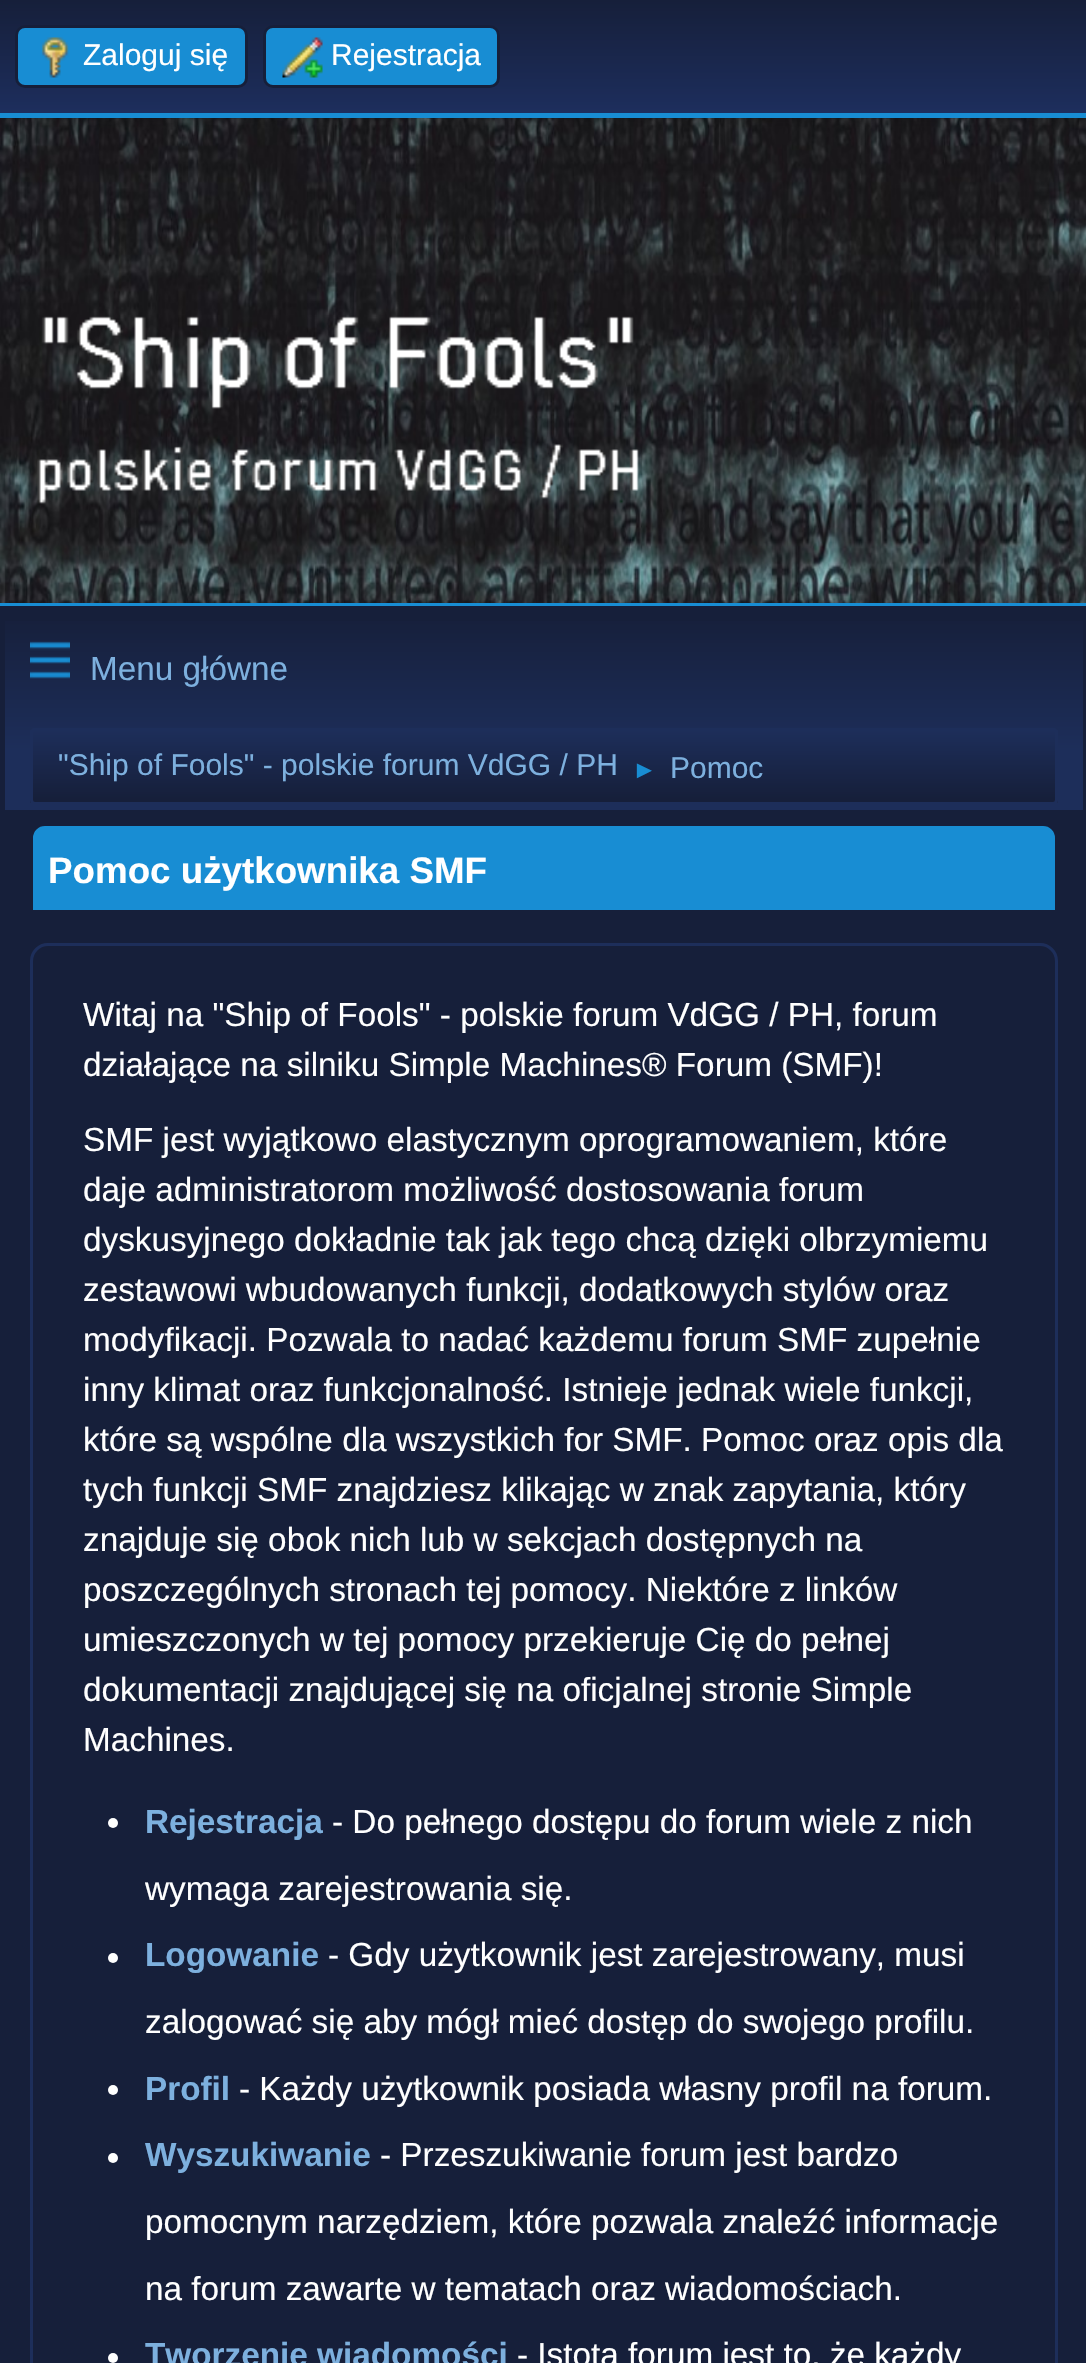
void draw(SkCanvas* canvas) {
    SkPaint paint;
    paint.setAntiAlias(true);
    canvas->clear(0xFFFFFFFF);
    canvas->drawImageRect(SkImages::DeferredFromEncodedData(SkData::MakeFromFileName("img1.png")), SkRect::MakeXYWH(0, 118, 1086, 485), SkSamplingOptions());
    paint.setColor(0x29000000);
    paint.setMaskFilter(SkMaskFilter::MakeBlur(kNormal_SkBlurStyle, 5));
    canvas->drawRect(SkRect::MakeXYWH(0, 3, 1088, 117), paint);
    paint.setMaskFilter(nullptr);
    {
        const SkColor colors[] = {0xFF161F3A, 0xFF1D2E5D};
        const float stops[] = {0, 1};
        const SkPoint ends[] = {{544, 0}, {544, 113}};
        paint.setShader(SkGradientShader::MakeLinear(ends, colors, stops, 2, SkTileMode::kClamp));
        paint.setAlpha(255);
    }
    canvas->drawRect(SkRect::MakeXYWH(0, 0, 1086, 113), paint);
    paint.setShader(nullptr);
    paint.setColor(0xFF188DD3);
    canvas->drawRect(SkRect::MakeXYWH(0, 113, 1086, 5), paint);
    canvas->drawRoundRect(SkRect::MakeXYWH(16.5f, 26.5f, 230, 60), 8.5f, 8.5f, paint);
    paint.setStyle(SkPaint::kStroke_Style);
    paint.setStrokeWidth(3);
    paint.setColor(0xFF161F3A);
    canvas->drawRoundRect(SkRect::MakeXYWH(16.5f, 26.5f, 230, 60), 8.5f, 8.5f, paint);
    canvas->drawImageRect(SkImages::DeferredFromEncodedData(SkData::MakeFromFileName("img2.png")), SkRect::MakeXYWH(41, 37, 28, 41), SkSamplingOptions());
    SkFont font1(fontMgr->matchFamilyStyle("Liberation Sans", SkFontStyle::Normal()), 30);
    font1.setSubpixel(true);
    paint.setStyle(SkPaint::kFill_Style);
    paint.setColor(0xFFFFFFFF);
    canvas->drawString("Zaloguj się", 83, 65, font1, paint);
    paint.setColor(0xFF188DD3);
    canvas->drawRoundRect(SkRect::MakeXYWH(264.5f, 26.5f, 234, 60), 8.5f, 8.5f, paint);
    paint.setStyle(SkPaint::kStroke_Style);
    paint.setColor(0xFF161F3A);
    canvas->drawRoundRect(SkRect::MakeXYWH(264.5f, 26.5f, 234, 60), 8.5f, 8.5f, paint);
    canvas->drawImageRect(SkImages::DeferredFromEncodedData(SkData::MakeFromFileName("img3.png")), SkRect::MakeXYWH(282, 37, 41, 41), SkSamplingOptions());
    paint.setStyle(SkPaint::kFill_Style);
    paint.setColor(0xFFFFFFFF);
    canvas->drawString("Rejestracja", 331, 65, font1, paint);
    canvas->drawImageRect(SkImages::DeferredFromEncodedData(SkData::MakeFromFileName("img4.png")), SkRect::MakeXYWH(37, 316, 602, 188), SkSamplingOptions());
    paint.setColor(0xFF161F3A);
    canvas->drawRect(SkRect::MakeXYWH(0, 606, 1086, 1757), paint);
    paint.setColor(0xFF188DD3);
    canvas->drawRect(SkRect::MakeXYWH(0, 603, 1086, 3), paint);
    {
        const SkColor colors[] = {0xFF161F3A, 0xFF1D2E5A};
        const float stops[] = {0, 0.7f};
        const SkPoint ends[] = {{544, 610}, {544, 810}};
        paint.setShader(SkGradientShader::MakeLinear(ends, colors, stops, 2, SkTileMode::kClamp));
        paint.setAlpha(255);
    }
    canvas->drawRect(SkRect::MakeXYWH(5, 621, 1078, 189), paint);
    canvas->drawImageRect(SkImages::DeferredFromEncodedData(SkData::MakeFromFileName("img5.png")), SkRect::MakeXYWH(30, 641, 40, 38), SkSamplingOptions());
    SkFont font2(fontMgr->matchFamilyStyle("Liberation Sans", SkFontStyle::Normal()), 33.3f);
    font2.setSubpixel(true);
    paint.setShader(nullptr);
    paint.setColor(0xFF7DB0DE);
    canvas->drawString("Menu główne", 90, 680, font2, paint);
    canvas->save();
    canvas->clipPath(SkPathBuilder().moveTo(35, 728).lineTo(1053, 728).cubicTo(1056, 728, 1058, 730, 1058, 733).lineTo(1058, 800).cubicTo(1058, 803, 1056, 805, 1053, 805).lineTo(35, 805).cubicTo(32, 805, 30, 803, 30, 800).lineTo(30, 733).cubicTo(30, 730, 32, 728, 35, 728).close().detach(), true);
    {
        const SkColor colors[] = {0xFF1D2E5A, 0xFF161F3A};
        const float stops[] = {0, 0.95f};
        const SkPoint ends[] = {{544, 730}, {544, 803}};
        paint.setShader(SkGradientShader::MakeLinear(ends, colors, stops, 2, SkTileMode::kClamp));
        paint.setAlpha(255);
    }
    canvas->drawRect(SkRect::MakeXYWH(30, 730, 1028, 73), paint);
    canvas->restore();
    paint.setStyle(SkPaint::kStroke_Style);
    paint.setShader(nullptr);
    paint.setColor(0xFF1D2E5A);
    canvas->drawRoundRect(SkRect::MakeXYWH(31.5f, 729.5f, 1025, 74), 3.5f, 3.5f, paint);
    paint.setStyle(SkPaint::kFill_Style);
    paint.setColor(0xFF7DB0DE);
    canvas->drawString("\"Ship of Fools\" - polskie forum VdGG / PH", 58, 775, font1, paint);
    SkFont font3(fontMgr->matchFamilyStyle("Liberation Sans", SkFontStyle::Normal()), 25);
    font3.setSubpixel(true);
    paint.setColor(0xFF188DD3);
    canvas->drawString("►", 632, 778, font3, paint);
    paint.setColor(0xFF7DB0DE);
    canvas->drawString("Pomoc", 670, 778, font1, paint);
    paint.setColor(0xFF188DD3);
    canvas->drawPath(SkPathBuilder().moveTo(45, 824.5f).lineTo(1043, 824.5f).cubicTo(1050.5f, 824.5f, 1056.5f, 830.5f, 1056.5f, 838).lineTo(1056.5f, 911.5f).lineTo(31.5f, 911.5f).lineTo(31.5f, 838).cubicTo(31.5f, 830.5f, 37.5f, 824.5f, 45, 824.5f).close().detach(), paint);
    paint.setStyle(SkPaint::kStroke_Style);
    paint.setColor(0xFF161F3A);
    canvas->drawPath(SkPathBuilder().moveTo(45, 824.5f).lineTo(1043, 824.5f).cubicTo(1050.5f, 824.5f, 1056.5f, 830.5f, 1056.5f, 838).lineTo(1056.5f, 911.5f).lineTo(31.5f, 911.5f).lineTo(31.5f, 838).cubicTo(31.5f, 830.5f, 37.5f, 824.5f, 45, 824.5f).close().detach(), paint);
    SkFont font4(fontMgr->matchFamilyStyle("Liberation Sans", SkFontStyle::Bold()), 36.75f);
    font4.setSubpixel(true);
    paint.setStyle(SkPaint::kFill_Style);
    paint.setColor(0xFFFFFFFF);
    canvas->drawString("Pomoc użytkownika SMF", 48, 883, font4, paint);
    paint.setStyle(SkPaint::kStroke_Style);
    paint.setColor(0xFF1D2E5A);
    canvas->drawRoundRect(SkRect::MakeXYWH(31.5f, 944.5f, 1025, 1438), 16.5f, 16.5f, paint);
    paint.setStyle(SkPaint::kFill_Style);
    paint.setColor(0xFFFFFFFF);
    canvas->drawString("Witaj na \"Ship of Fools\" - polskie forum VdGG / PH, forum", 83, 1026, font2, paint);
    canvas->drawString("działające na silniku Simple Machines® Forum (SMF)!", 83, 1076, font2, paint);
    canvas->drawString("SMF jest wyjątkowo elastycznym oprogramowaniem, które", 83, 1151, font2, paint);
    canvas->drawString("daje administratorom możliwość dostosowania forum", 83, 1201, font2, paint);
    canvas->drawString("dyskusyjnego dokładnie tak jak tego chcą dzięki olbrzymiemu", 83, 1251, font2, paint);
    canvas->drawString("zestawowi wbudowanych funkcji, dodatkowych stylów oraz", 83, 1301, font2, paint);
    canvas->drawString("modyfikacji. Pozwala to nadać każdemu forum SMF zupełnie", 83, 1351, font2, paint);
    canvas->drawString("inny klimat oraz funkcjonalność. Istnieje jednak wiele funkcji,", 83, 1401, font2, paint);
    canvas->drawString("które są wspólne dla wszystkich for SMF. Pomoc oraz opis dla", 83, 1451, font2, paint);
    canvas->drawString("tych funkcji SMF znajdziesz klikając w znak zapytania, który", 83, 1501, font2, paint);
    canvas->drawString("znajduje się obok nich lub w sekcjach dostępnych na", 83, 1551, font2, paint);
    canvas->drawString("poszczególnych stronach tej pomocy. Niektóre z linków", 83, 1601, font2, paint);
    canvas->drawString("umieszczonych w tej pomocy przekieruje Cię do pełnej", 83, 1651, font2, paint);
    canvas->drawString("dokumentacji znajdującej się na oficjalnej stronie Simple", 83, 1701, font2, paint);
    canvas->drawString("Machines.", 83, 1751, font2, paint);
    canvas->drawCircle(113, 1823, 5, paint);
    SkFont font5(fontMgr->matchFamilyStyle("Liberation Sans", SkFontStyle::Bold()), 33.3f);
    font5.setSubpixel(true);
    paint.setColor(0xFF7DB0DE);
    canvas->drawString("Rejestracja", 145, 1833, font5, paint);
    paint.setColor(0xFFFFFFFF);
    canvas->drawString("- Do pełnego dostępu do forum wiele z nich", 332, 1833, font2, paint);
    canvas->drawString("wymaga zarejestrowania się.", 145, 1900, font2, paint);
    canvas->drawCircle(113, 1958, 5, paint);
    paint.setColor(0xFF7DB0DE);
    canvas->drawString("Logowanie", 145, 1966, font5, paint);
    paint.setColor(0xFFFFFFFF);
    canvas->drawString("- Gdy użytkownik jest zarejestrowany, musi", 328, 1966, font2, paint);
    canvas->drawString("zalogować się aby mógł mieć dostęp do swojego profilu.", 145, 2033, font2, paint);
    canvas->drawCircle(113, 2090, 5, paint);
    paint.setColor(0xFF7DB0DE);
    canvas->drawString("Profil", 145, 2100, font5, paint);
    paint.setColor(0xFFFFFFFF);
    canvas->drawString("- Każdy użytkownik posiada własny profil na forum.", 239, 2100, font2, paint);
    canvas->drawCircle(113, 2158, 5, paint);
    paint.setColor(0xFF7DB0DE);
    canvas->drawString("Wyszukiwanie", 145, 2166, font5, paint);
    paint.setColor(0xFFFFFFFF);
    canvas->drawString("- Przeszukiwanie forum jest bardzo", 380, 2166, font2, paint);
    canvas->drawString("pomocnym narzędziem, które pozwala znaleźć informacje", 145, 2233, font2, paint);
    canvas->drawString("na forum zawarte w tematach oraz wiadomościach.", 145, 2300, font2, paint);
    canvas->drawCircle(113, 2358, 5, paint);
    paint.setColor(0xFF7DB0DE);
    canvas->drawString("Tworzenie wiadomości", 145, 2366, font5, paint);
    paint.setColor(0xFFFFFFFF);
    canvas->drawString("- Istotą forum jest to, że każdy", 517, 2366, font2, paint);
}
